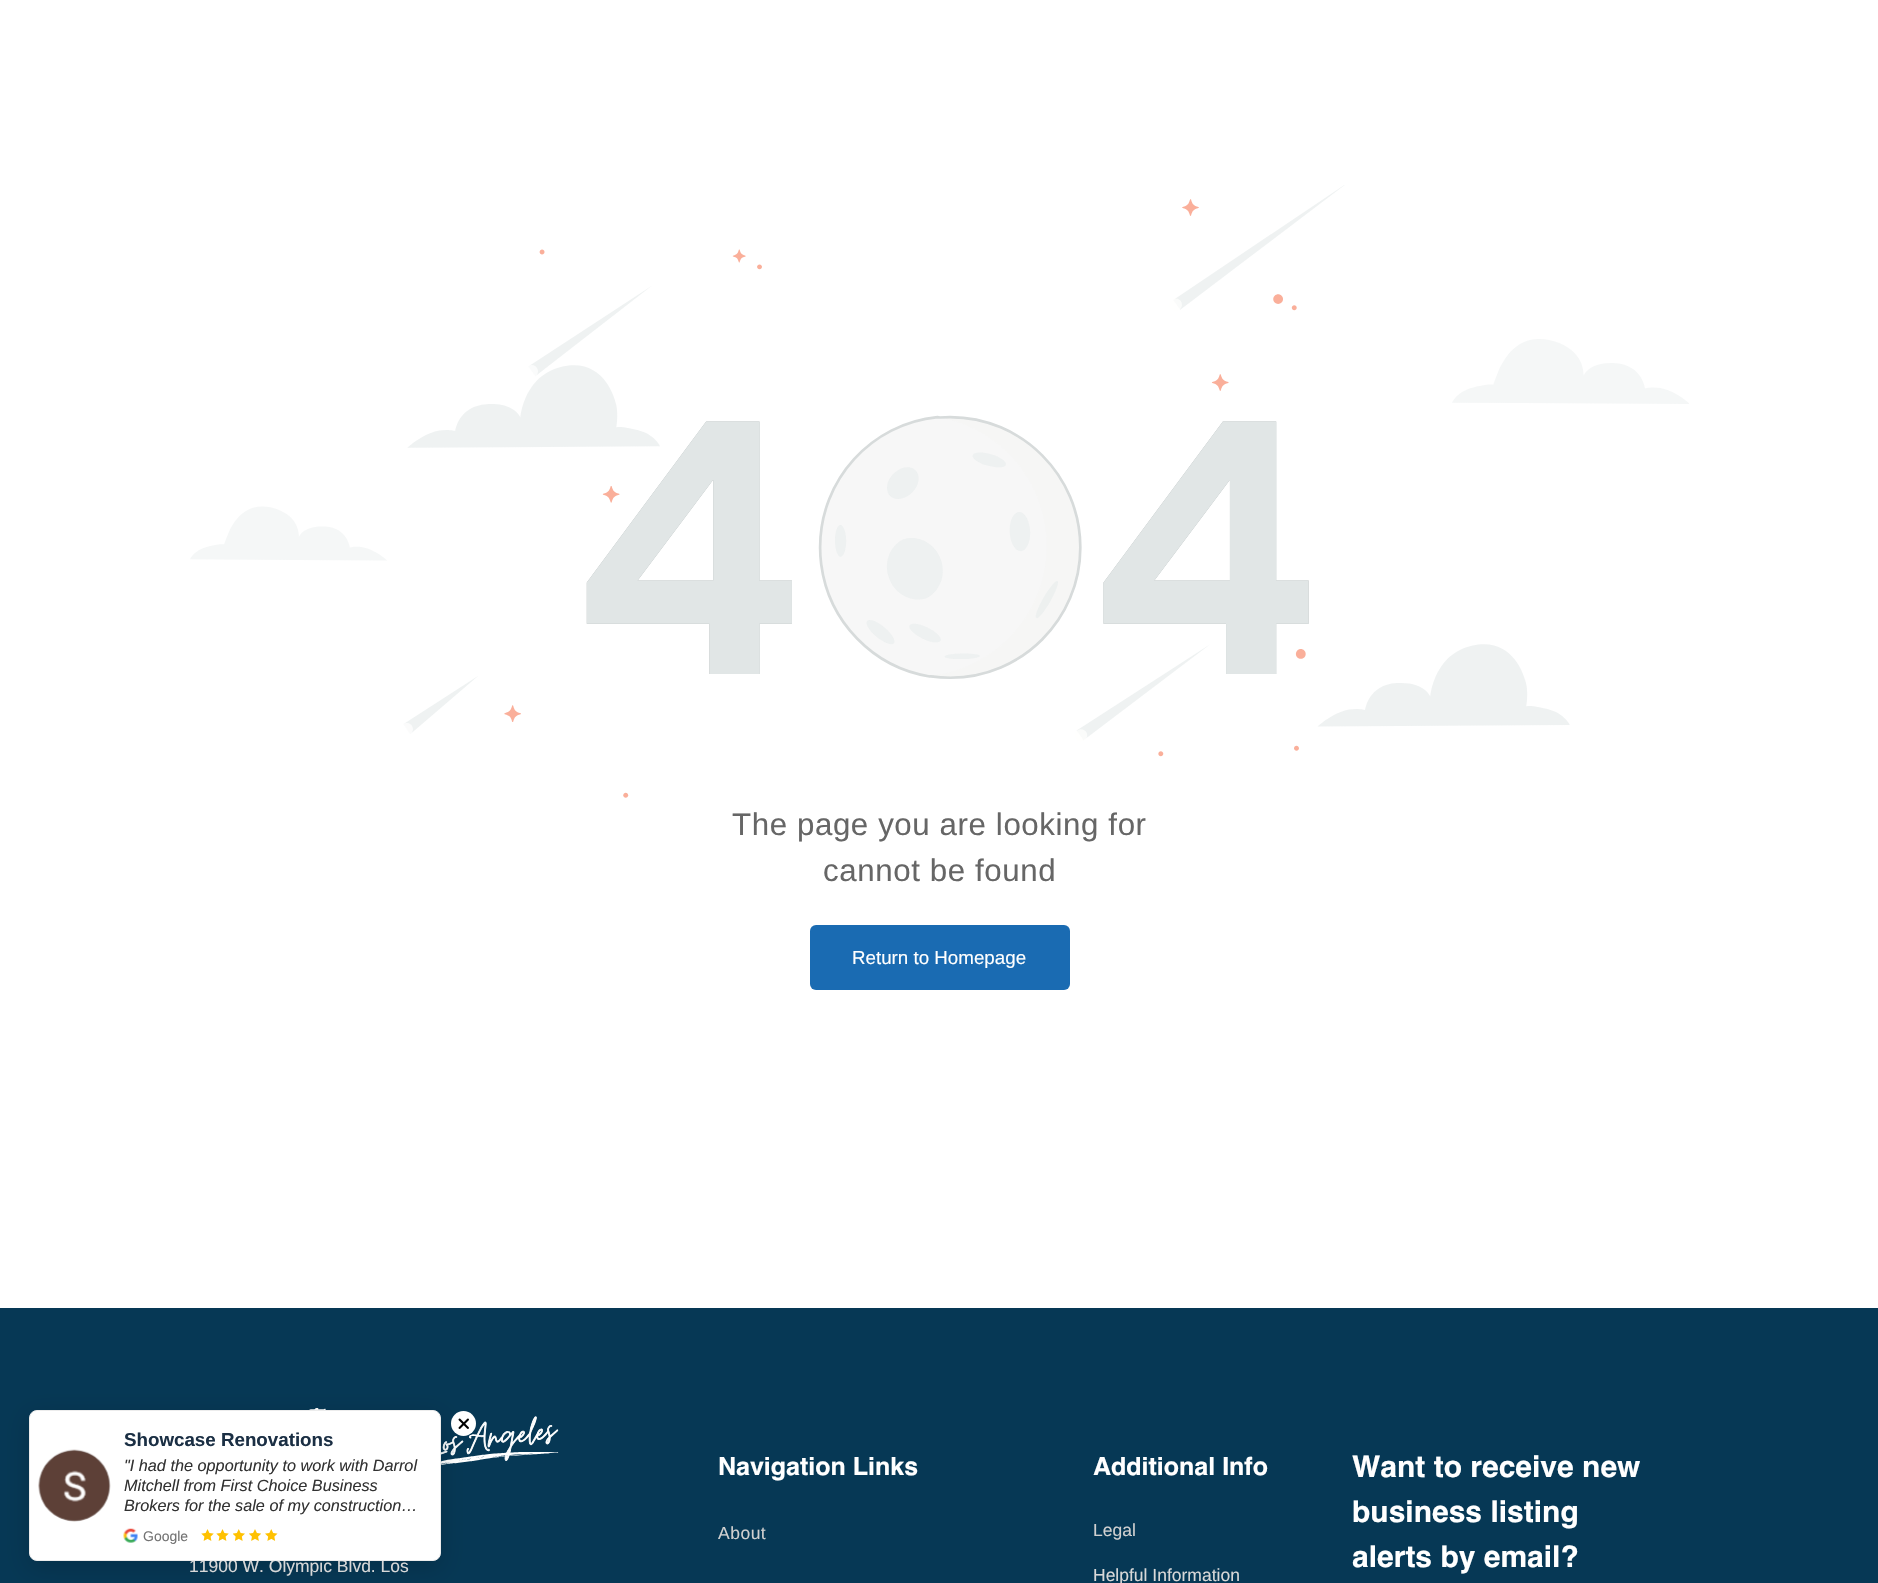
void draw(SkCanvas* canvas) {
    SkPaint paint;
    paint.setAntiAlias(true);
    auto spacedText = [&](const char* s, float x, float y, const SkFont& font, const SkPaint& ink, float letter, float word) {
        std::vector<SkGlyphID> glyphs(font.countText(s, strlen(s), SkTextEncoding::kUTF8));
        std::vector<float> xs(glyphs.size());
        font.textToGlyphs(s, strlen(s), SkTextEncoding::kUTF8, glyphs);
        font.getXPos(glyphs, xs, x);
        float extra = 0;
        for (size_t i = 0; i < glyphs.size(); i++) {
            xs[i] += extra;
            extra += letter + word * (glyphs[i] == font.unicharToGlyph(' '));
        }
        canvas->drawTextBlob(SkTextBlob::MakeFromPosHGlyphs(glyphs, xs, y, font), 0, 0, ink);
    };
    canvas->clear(0xFFFFFFFF);
    canvas->drawImageRect(SkImages::DeferredFromEncodedData(SkData::MakeFromFileName("img1.png")), SkRect::MakeXYWH(190, 185, 1499, 613), SkSamplingOptions());
    SkFont font1(fontMgr->matchFamilyStyle("Liberation Sans", SkFontStyle::Normal()), 31.25f);
    font1.setSubpixel(true);
    paint.setColor(0xFF666666);
    spacedText("The page you are looking for", 732, 835, font1, paint, 0.6f, 0);
    spacedText("cannot be found", 823, 881, font1, paint, 0.6f, 0);
    paint.setColor(0xFF1A6BB2);
    canvas->drawRoundRect(SkRect::MakeXYWH(810, 925, 260, 65), 6, 6, paint);
    SkFont font2(fontMgr->matchFamilyStyle("Liberation Sans", SkFontStyle::Normal()), 18.75f);
    font2.setSubpixel(true);
    paint.setColor(0xFFFFFFFF);
    canvas->drawString("Return to Homepage", 852, 964, font2, paint);
    paint.setColor(0xFF063855);
    canvas->drawRect(SkRect::MakeXYWH(0, 1308, 1878, 275), paint);
    canvas->drawImageRect(SkImages::DeferredFromEncodedData(SkData::MakeFromFileName("img9.png")), SkRect::MakeXYWH(309, 1408, 250, 57), SkSamplingOptions());
    paint.setColor(0x26000000);
    paint.setMaskFilter(SkMaskFilter::MakeBlur(kNormal_SkBlurStyle, 12.5f));
    canvas->drawRoundRect(SkRect::MakeXYWH(29, 1416, 412, 152), 8, 8, paint);
    paint.setMaskFilter(nullptr);
    paint.setColor(0xFFFFFFFF);
    canvas->drawCircle(463.5f, 1423.5f, 12.5f, paint);
    canvas->drawImageRect(SkImages::DeferredFromEncodedData(SkData::MakeFromFileName("img2.png")), SkRect::MakeXYWH(458, 1418, 11, 11), SkSamplingOptions());
    SkFont font3(fontMgr->matchFamilyStyle("Liberation Sans", SkFontStyle::Normal()), 17.5f);
    font3.setSubpixel(true);
    paint.setColor(0xFFD8D8D8);
    canvas->drawString("11900 W. Olympic Blvd. Los", 189, 1572, font3, paint);
    paint.setColor(0xFFFFFFFF);
    canvas->drawRoundRect(SkRect::MakeXYWH(29.5f, 1410.5f, 411, 150), 7.5f, 7.5f, paint);
    paint.setStyle(SkPaint::kStroke_Style);
    paint.setStrokeWidth(1);
    paint.setColor(0xFFECECEC);
    canvas->drawRoundRect(SkRect::MakeXYWH(29.5f, 1410.5f, 411, 150), 7.5f, 7.5f, paint);
    canvas->drawImageRect(SkImages::DeferredFromEncodedData(SkData::MakeFromFileName("img3.png")), SkRect::MakeXYWH(38, 1449, 73, 73), SkSamplingOptions());
    SkFont font4(fontMgr->matchFamilyStyle("Liberation Sans", SkFontStyle::Bold()), 18.75f);
    font4.setSubpixel(true);
    paint.setStyle(SkPaint::kFill_Style);
    paint.setColor(0xFF1B2F44);
    canvas->drawString("Showcase Renovations", 124, 1446, font4, paint);
    SkFont font5(fontMgr->matchFamilyStyle("Liberation Sans", SkFontStyle::Italic()), 16.25f);
    font5.setSubpixel(true);
    paint.setColor(0xFF323232);
    canvas->drawString("\"I had the opportunity to work with Darrol", 124, 1471, font5, paint);
    canvas->drawString("Mitchell from First Choice Business", 124, 1491, font5, paint);
    canvas->drawString("Brokers for the sale of my construction…", 124, 1511, font5, paint);
    canvas->drawImageRect(SkImages::DeferredFromEncodedData(SkData::MakeFromFileName("img4.png")), SkRect::MakeXYWH(123, 1528, 15, 15), SkSamplingOptions());
    SkFont font6(fontMgr->matchFamilyStyle("Liberation Sans", SkFontStyle::Normal()), 14);
    font6.setSubpixel(true);
    paint.setColor(0xFF737373);
    canvas->drawString("Google", 143, 1541, font6, paint);
    canvas->drawImageRect(SkImages::DeferredFromEncodedData(SkData::MakeFromFileName("img5.png")), SkRect::MakeXYWH(201, 1529, 13, 12), SkSamplingOptions());
    canvas->drawImageRect(SkImages::DeferredFromEncodedData(SkData::MakeFromFileName("img5.png")), SkRect::MakeXYWH(216, 1529, 13, 12), SkSamplingOptions());
    canvas->drawImageRect(SkImages::DeferredFromEncodedData(SkData::MakeFromFileName("img6.png")), SkRect::MakeXYWH(233, 1529, 12, 12), SkSamplingOptions());
    canvas->drawImageRect(SkImages::DeferredFromEncodedData(SkData::MakeFromFileName("img7.png")), SkRect::MakeXYWH(249, 1529, 12, 12), SkSamplingOptions());
    canvas->drawImageRect(SkImages::DeferredFromEncodedData(SkData::MakeFromFileName("img8.png")), SkRect::MakeXYWH(265, 1529, 13, 12), SkSamplingOptions());
    SkFont font7(fontMgr->matchFamilyStyle("Helvetica", SkFontStyle::Bold()), 25);
    font7.setSubpixel(true);
    paint.setColor(0xFFFFFFFF);
    canvas->drawString("Navigation Links", 718, 1475, font7, paint);
    paint.setColor(0xFFD0D0D0);
    spacedText("About", 718, 1539, font3, paint, 0.5f, 0);
    paint.setColor(0xFFFFFFFF);
    canvas->drawString("Additional Info", 1093, 1475, font7, paint);
    paint.setColor(0xFFD0D0D0);
    canvas->drawString("Legal", 1093, 1536, font3, paint);
    paint.setColor(0xFFD8D8D8);
    canvas->drawString("Helpful Information", 1093, 1581, font3, paint);
    SkFont font8(fontMgr->matchFamilyStyle("Helvetica", SkFontStyle::Bold()), 30);
    font8.setSubpixel(true);
    paint.setColor(0xFFFFFFFF);
    canvas->drawString("Want to receive new", 1352, 1477, font8, paint);
    canvas->drawString("business listing", 1352, 1522, font8, paint);
    canvas->drawString("alerts by email?", 1352, 1567, font8, paint);
}
